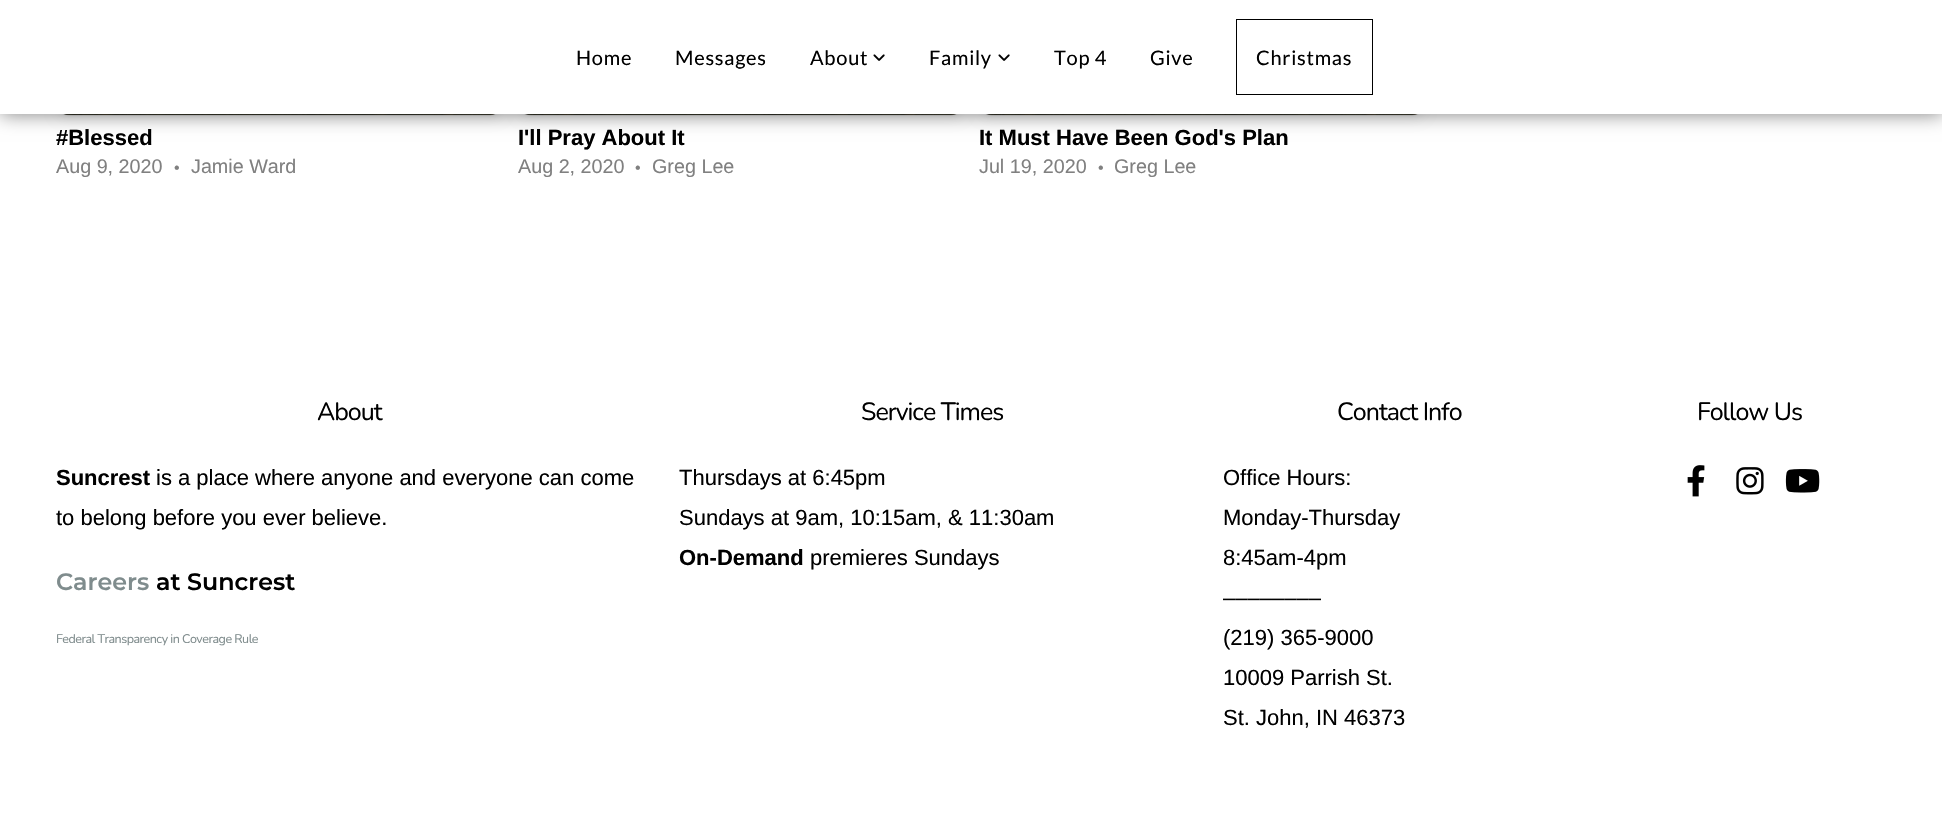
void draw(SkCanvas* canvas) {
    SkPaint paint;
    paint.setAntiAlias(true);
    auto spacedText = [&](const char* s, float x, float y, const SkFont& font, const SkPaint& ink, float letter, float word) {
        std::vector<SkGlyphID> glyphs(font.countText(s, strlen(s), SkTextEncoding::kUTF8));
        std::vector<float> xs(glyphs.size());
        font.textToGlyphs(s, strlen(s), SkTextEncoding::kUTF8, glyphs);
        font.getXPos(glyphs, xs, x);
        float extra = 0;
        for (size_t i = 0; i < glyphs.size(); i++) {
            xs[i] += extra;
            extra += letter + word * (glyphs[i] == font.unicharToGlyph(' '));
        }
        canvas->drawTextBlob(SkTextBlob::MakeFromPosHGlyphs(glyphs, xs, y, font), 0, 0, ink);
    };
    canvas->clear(0xFFFFFFFF);
    paint.setColor(0x0A000000);
    paint.setMaskFilter(SkMaskFilter::MakeBlur(kNormal_SkBlurStyle, 1));
    canvas->drawRoundRect(SkRect::MakeXYWH(56, -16, 447, 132), 13, 13, paint);
    paint.setMaskFilter(nullptr);
    paint.setColor(0x0F000000);
    paint.setMaskFilter(SkMaskFilter::MakeBlur(kNormal_SkBlurStyle, 6));
    canvas->drawRoundRect(SkRect::MakeXYWH(56, -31, 447, 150), 13, 13, paint);
    paint.setMaskFilter(nullptr);
    paint.setColor(0xFF55523F);
    canvas->drawRoundRect(SkRect::MakeXYWH(56, -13, 447, 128), 13, 13, paint);
    canvas->drawImageRect(SkImages::DeferredFromEncodedData(SkData::MakeFromFileName("img2.png")), SkRect::MakeXYWH(63, 114, 433, 2), SkSamplingOptions());
    paint.setColor(0x0A000000);
    paint.setMaskFilter(SkMaskFilter::MakeBlur(kNormal_SkBlurStyle, 1));
    canvas->drawRoundRect(SkRect::MakeXYWH(518, -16, 446, 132), 13, 13, paint);
    paint.setMaskFilter(nullptr);
    paint.setColor(0x0F000000);
    paint.setMaskFilter(SkMaskFilter::MakeBlur(kNormal_SkBlurStyle, 6));
    canvas->drawRoundRect(SkRect::MakeXYWH(518, -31, 446, 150), 13, 13, paint);
    paint.setMaskFilter(nullptr);
    paint.setColor(0xFF55523F);
    canvas->drawRoundRect(SkRect::MakeXYWH(518, -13, 446, 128), 13, 13, paint);
    canvas->drawImageRect(SkImages::DeferredFromEncodedData(SkData::MakeFromFileName("img3.png")), SkRect::MakeXYWH(524, 114, 433, 2), SkSamplingOptions());
    paint.setColor(0x0A000000);
    paint.setMaskFilter(SkMaskFilter::MakeBlur(kNormal_SkBlurStyle, 1));
    canvas->drawRoundRect(SkRect::MakeXYWH(979, -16, 446, 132), 13, 13, paint);
    paint.setMaskFilter(nullptr);
    paint.setColor(0x0F000000);
    paint.setMaskFilter(SkMaskFilter::MakeBlur(kNormal_SkBlurStyle, 6));
    canvas->drawRoundRect(SkRect::MakeXYWH(979, -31, 446, 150), 13, 13, paint);
    paint.setMaskFilter(nullptr);
    paint.setColor(0xFF55523F);
    canvas->drawRoundRect(SkRect::MakeXYWH(979, -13, 446, 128), 13, 13, paint);
    canvas->drawImageRect(SkImages::DeferredFromEncodedData(SkData::MakeFromFileName("img4.png")), SkRect::MakeXYWH(986, 114, 432, 2), SkSamplingOptions());
    paint.setColor(0x80000000);
    paint.setMaskFilter(SkMaskFilter::MakeBlur(kNormal_SkBlurStyle, 9.5f));
    canvas->drawRect(SkRect::MakeXYWH(0, 0, 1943, 114), paint);
    paint.setMaskFilter(nullptr);
    paint.setColor(0xFFFFFFFF);
    canvas->drawRect(SkRect::MakeXYWH(0, 0, 1942, 114), paint);
    SkFont font1(fontMgr->matchFamilyStyle("Lato", SkFontStyle::Normal()), 20);
    font1.setSubpixel(true);
    paint.setColor(0xFF000000);
    spacedText("Home", 576, 65, font1, paint, 0.75f, 0);
    spacedText("Messages", 675, 65, font1, paint, 0.75f, 0);
    spacedText("About", 810, 65, font1, paint, 0.75f, 0);
    canvas->drawImageRect(SkImages::DeferredFromEncodedData(SkData::MakeFromFileName("img1.png")), SkRect::MakeXYWH(873, 54, 12, 7), SkSamplingOptions());
    spacedText("Family", 929, 65, font1, paint, 0.75f, 0);
    canvas->drawImageRect(SkImages::DeferredFromEncodedData(SkData::MakeFromFileName("img1.png")), SkRect::MakeXYWH(998, 54, 12, 7), SkSamplingOptions());
    spacedText("Top 4", 1054, 65, font1, paint, 0.75f, 0);
    spacedText("Give", 1150, 65, font1, paint, 0.75f, 0);
    paint.setStyle(SkPaint::kStroke_Style);
    paint.setStrokeWidth(1);
    canvas->drawRect(SkRect::MakeXYWH(1236.5f, 19.5f, 136, 75), paint);
    paint.setStyle(SkPaint::kFill_Style);
    spacedText("Christmas", 1256, 65, font1, paint, 0.75f, 0);
    SkFont font2(fontMgr->matchFamilyStyle("Liberation Sans", SkFontStyle::Bold()), 22);
    font2.setSubpixel(true);
    canvas->drawString("#Blessed", 56, 145, font2, paint);
    SkFont font3(fontMgr->matchFamilyStyle("Liberation Sans", SkFontStyle::Normal()), 19.75f);
    font3.setSubpixel(true);
    paint.setColor(0xFF808080);
    canvas->drawString("Aug 9, 2020", 56, 173, font3, paint);
    SkFont font4(fontMgr->matchFamilyStyle("Liberation Sans", SkFontStyle::Normal()), 16);
    font4.setSubpixel(true);
    canvas->drawString("•", 174, 173, font4, paint);
    canvas->drawString("Jamie Ward", 191, 173, font3, paint);
    paint.setColor(0xFF000000);
    canvas->drawString("I'll Pray About It", 518, 145, font2, paint);
    paint.setColor(0xFF808080);
    canvas->drawString("Aug 2, 2020", 518, 173, font3, paint);
    canvas->drawString("•", 635, 173, font4, paint);
    canvas->drawString("Greg Lee", 652, 173, font3, paint);
    paint.setColor(0xFF000000);
    canvas->drawString("It Must Have Been God's Plan", 979, 145, font2, paint);
    paint.setColor(0xFF808080);
    canvas->drawString("Jul 19, 2020", 979, 173, font3, paint);
    canvas->drawString("•", 1098, 173, font4, paint);
    canvas->drawString("Greg Lee", 1114, 173, font3, paint);
    SkFont font5(fontMgr->matchFamilyStyle("Nunito", SkFontStyle::Normal()), 25);
    font5.setSubpixel(true);
    paint.setColor(0xFF000000);
    spacedText("About", 317, 420, font5, paint, -1, 0);
    canvas->drawString("Suncrest", 56, 485, font2, paint);
    SkFont font6(fontMgr->matchFamilyStyle("Liberation Sans", SkFontStyle::Normal()), 22);
    font6.setSubpixel(true);
    canvas->drawString("is a place where anyone and everyone can come", 156, 485, font6, paint);
    canvas->drawString("to belong before you ever believe.", 56, 525, font6, paint);
    SkFont font7(fontMgr->matchFamilyStyle("Montserrat", SkFontStyle(600, SkFontStyle::kNormal_Width, SkFontStyle::kUpright_Slant)), 23.75f);
    font7.setSubpixel(true);
    paint.setColor(0xFF7F8C8D);
    canvas->drawString("Careers", 56, 590, font7, paint);
    paint.setColor(0xFF000000);
    canvas->drawString("at Suncrest", 156, 590, font7, paint);
    SkFont font8(fontMgr->matchFamilyStyle("Nunito", SkFontStyle::Normal()), 12.5f);
    font8.setSubpixel(true);
    paint.setColor(0xFF7F8C8D);
    spacedText("Federal Transparency in Coverage Rule", 56, 643, font8, paint, -0.5f, 0);
    paint.setColor(0xFF000000);
    spacedText("Service Times", 861, 420, font5, paint, -1, 0);
    canvas->drawString("Thursdays at 6:45pm", 679, 485, font6, paint);
    canvas->drawString("Sundays at 9am, 10:15am, & 11:30am", 679, 525, font6, paint);
    canvas->drawString("On-Demand", 679, 565, font2, paint);
    canvas->drawString("premieres Sundays", 810, 565, font6, paint);
    spacedText("Contact Info", 1337, 420, font5, paint, -1, 0);
    canvas->drawString("Office Hours:", 1223, 485, font6, paint);
    canvas->drawString("Monday-Thursday", 1223, 525, font6, paint);
    canvas->drawString("8:45am-4pm", 1223, 565, font6, paint);
    canvas->drawString("––––––––", 1223, 605, font6, paint);
    canvas->drawString("(219) 365-9000", 1223, 645, font6, paint);
    canvas->drawString("10009 Parrish St.", 1223, 685, font6, paint);
    canvas->drawString("St. John, IN 46373", 1223, 725, font6, paint);
    spacedText("Follow Us", 1697, 420, font5, paint, -1, 0);
    canvas->drawImageRect(SkImages::DeferredFromEncodedData(SkData::MakeFromFileName("img5.png")), SkRect::MakeXYWH(1687, 465, 18, 32), SkSamplingOptions());
    canvas->drawImageRect(SkImages::DeferredFromEncodedData(SkData::MakeFromFileName("img6.png")), SkRect::MakeXYWH(1736, 467, 28, 28), SkSamplingOptions());
    canvas->drawImageRect(SkImages::DeferredFromEncodedData(SkData::MakeFromFileName("img7.png")), SkRect::MakeXYWH(1785, 469, 35, 24), SkSamplingOptions());
}
